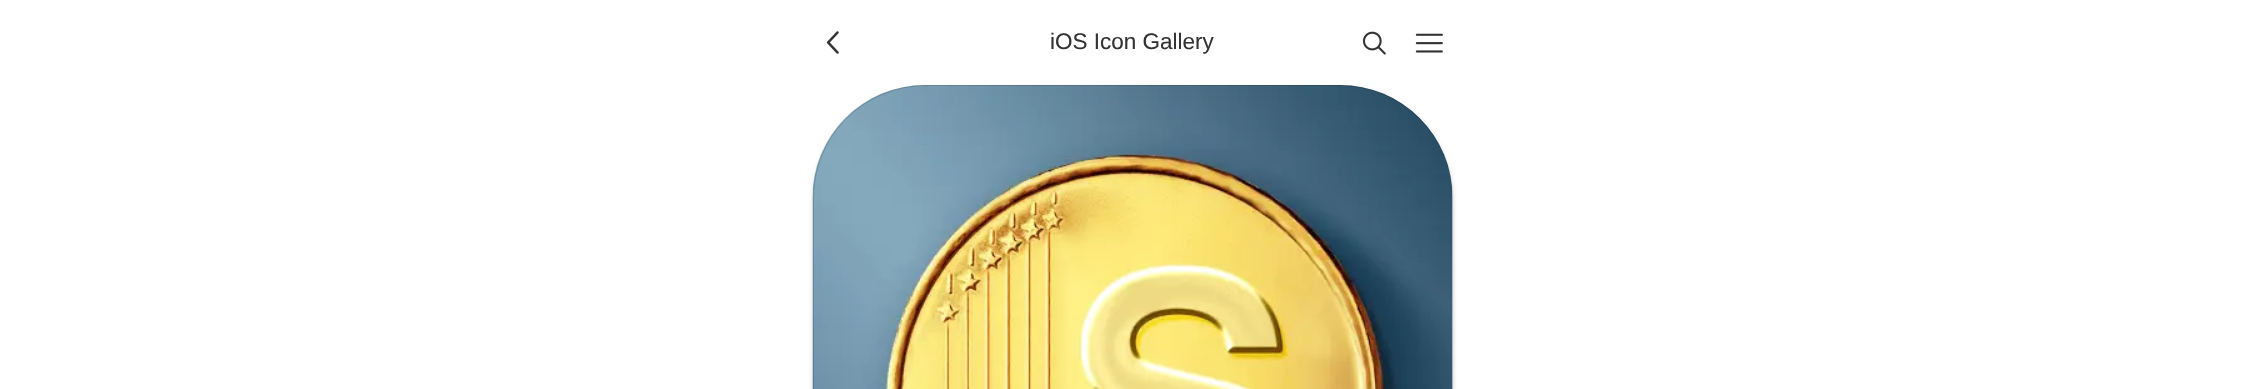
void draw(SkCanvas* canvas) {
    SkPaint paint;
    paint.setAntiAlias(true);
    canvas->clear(0xFFFFFFFF);
    canvas->drawImageRect(SkImages::DeferredFromEncodedData(SkData::MakeFromFileName("img1.png")), SkRect::MakeXYWH(826, 31, 13, 23), SkSamplingOptions());
    SkFont font1(fontMgr->matchFamilyStyle("Liberation Sans", SkFontStyle::Normal()), 22.5f);
    font1.setSubpixel(true);
    paint.setColor(0xFF333333);
    canvas->drawString("iOS Icon Gallery", 1050, 49, font1, paint);
    canvas->drawImageRect(SkImages::DeferredFromEncodedData(SkData::MakeFromFileName("img2.png")), SkRect::MakeXYWH(1362, 31, 24, 24), SkSamplingOptions());
    canvas->drawImageRect(SkImages::DeferredFromEncodedData(SkData::MakeFromFileName("img3.png")), SkRect::MakeXYWH(1415, 33, 28, 20), SkSamplingOptions());
    canvas->drawImageRect(SkImages::DeferredFromEncodedData(SkData::MakeFromFileName("img4.png")), SkRect::MakeXYWH(812, 85, 641, 304), SkSamplingOptions());
    canvas->save();
    canvas->clipPath(SkPathBuilder(SkPathFillType::kEvenOdd).moveTo(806, 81).lineTo(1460, 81).lineTo(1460, 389).lineTo(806, 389).close().moveTo(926, 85).lineTo(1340, 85).cubicTo(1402.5f, 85, 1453, 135.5f, 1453, 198).lineTo(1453, 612).cubicTo(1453, 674.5f, 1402.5f, 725, 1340, 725).lineTo(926, 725).cubicTo(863.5f, 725, 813, 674.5f, 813, 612).lineTo(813, 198).cubicTo(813, 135.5f, 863.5f, 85, 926, 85).close().detach(), true);
    paint.setColor(0x33000000);
    paint.setMaskFilter(SkMaskFilter::MakeBlur(kNormal_SkBlurStyle, 2));
    canvas->drawRoundRect(SkRect::MakeXYWH(813, 88, 640, 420), 113, 113, paint);
    paint.setMaskFilter(nullptr);
    canvas->restore();
    paint.setStyle(SkPaint::kStroke_Style);
    paint.setStrokeWidth(1);
    paint.setColor(0x26000000);
    canvas->drawRoundRect(SkRect::MakeXYWH(813.5f, 85.5f, 639, 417), 112.5f, 112.5f, paint);
}
